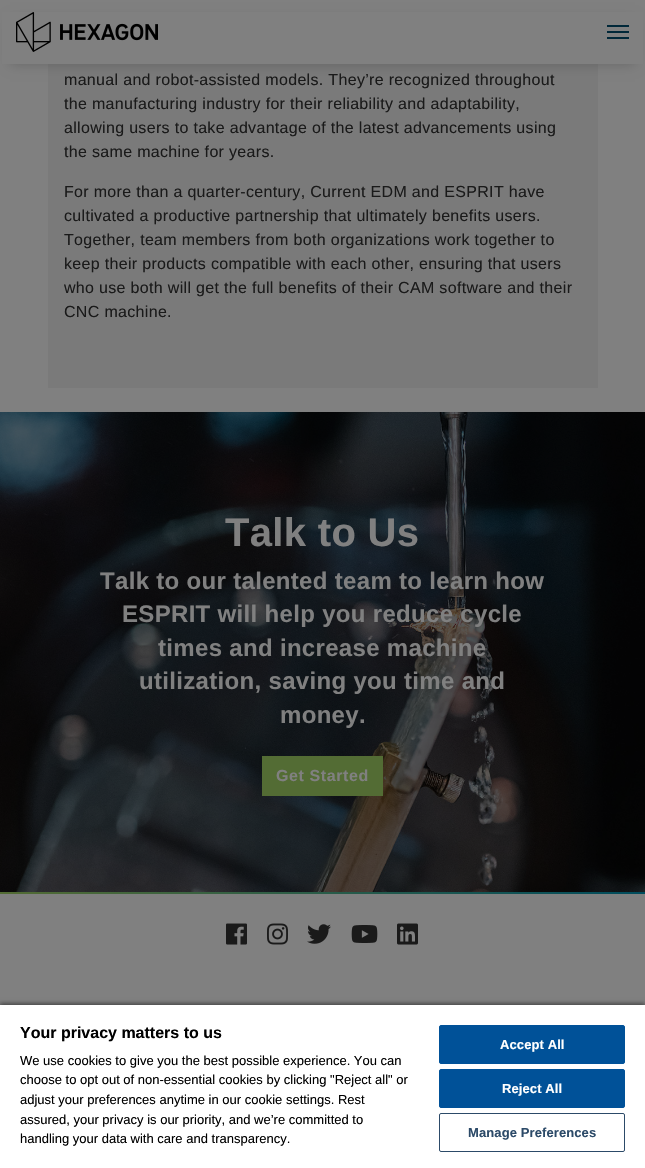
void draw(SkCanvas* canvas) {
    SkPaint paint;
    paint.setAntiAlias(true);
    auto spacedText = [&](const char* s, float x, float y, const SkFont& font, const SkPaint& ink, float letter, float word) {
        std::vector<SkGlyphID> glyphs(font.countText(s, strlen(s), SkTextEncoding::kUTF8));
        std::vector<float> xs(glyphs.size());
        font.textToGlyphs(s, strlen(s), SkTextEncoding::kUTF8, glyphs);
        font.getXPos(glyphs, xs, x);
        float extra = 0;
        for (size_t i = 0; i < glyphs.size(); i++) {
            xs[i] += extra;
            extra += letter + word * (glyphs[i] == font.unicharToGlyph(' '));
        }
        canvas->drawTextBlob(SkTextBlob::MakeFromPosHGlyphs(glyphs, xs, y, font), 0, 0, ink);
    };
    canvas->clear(0xFF808080);
    paint.setColor(0xFF7A7A7A);
    canvas->drawRect(SkRect::MakeXYWH(48, 64, 550, 324), paint);
    paint.setColor(0x33000000);
    paint.setMaskFilter(SkMaskFilter::MakeBlur(kNormal_SkBlurStyle, 6));
    canvas->drawRect(SkRect::MakeXYWH(10, 20, 625, 44), paint);
    paint.setMaskFilter(nullptr);
    paint.setColor(0xFF808080);
    canvas->drawRect(SkRect::MakeXYWH(2, 12, 641, 52), paint);
    canvas->drawImageRect(SkImages::DeferredFromEncodedData(SkData::MakeFromFileName("img1.png")), SkRect::MakeXYWH(16, 12, 142, 40), SkSamplingOptions());
    paint.setColor(0xFF002839);
    canvas->drawRect(SkRect::MakeXYWH(607, 25, 22, 2), paint);
    canvas->drawRect(SkRect::MakeXYWH(607, 31, 22, 2), paint);
    canvas->drawRect(SkRect::MakeXYWH(607, 37, 22, 2), paint);
    SkFont font1(fontMgr->matchFamilyStyle("Liberation Sans", SkFontStyle::Normal()), 16);
    font1.setSubpixel(true);
    paint.setColor(0xFF1A1A1A);
    spacedText("manual and robot-assisted models. They’re recognized throughout", 64, 85, font1, paint, 0.32f, 0);
    spacedText("the manufacturing industry for their reliability and adaptability,", 64, 109, font1, paint, 0.32f, 0);
    spacedText("allowing users to take advantage of the latest advancements using", 64, 133, font1, paint, 0.32f, 0);
    spacedText("the same machine for years.", 64, 157, font1, paint, 0.32f, 0);
    spacedText("For more than a quarter-century, Current EDM and ESPRIT have", 64, 197, font1, paint, 0.32f, 0);
    spacedText("cultivated a productive partnership that ultimately benefits users.", 64, 221, font1, paint, 0.32f, 0);
    spacedText("Together, team members from both organizations work together to", 64, 245, font1, paint, 0.32f, 0);
    spacedText("keep their products compatible with each other, ensuring that users", 64, 269, font1, paint, 0.32f, 0);
    spacedText("who use both will get the full benefits of their CAM software and their", 64, 293, font1, paint, 0.32f, 0);
    spacedText("CNC machine.", 64, 317, font1, paint, 0.32f, 0);
    canvas->drawImageRect(SkImages::DeferredFromEncodedData(SkData::MakeFromFileName("img2.png")), SkRect::MakeXYWH(0, 412, 645, 480), SkSamplingOptions());
    SkFont font2(fontMgr->matchFamilyStyle("Liberation Sans", SkFontStyle::Bold()), 40);
    font2.setSubpixel(true);
    paint.setColor(0xFF808080);
    spacedText("Talk to Us", 225, 546, font2, paint, 0.32f, 0);
    SkFont font3(fontMgr->matchFamilyStyle("Liberation Sans", SkFontStyle::Bold()), 24);
    font3.setSubpixel(true);
    spacedText("Talk to our talented team to learn how", 100, 589, font3, paint, 0.32f, 0);
    spacedText("ESPRIT will help you reduce cycle", 122, 622, font3, paint, 0.32f, 0);
    spacedText("times and increase machine", 158, 656, font3, paint, 0.32f, 0);
    spacedText("utilization, saving you time and", 139, 689, font3, paint, 0.32f, 0);
    spacedText("money.", 280, 723, font3, paint, 0.32f, 0);
    paint.setColor(0xFF536C34);
    canvas->drawRect(SkRect::MakeXYWH(262, 756, 121, 40), paint);
    SkFont font4(fontMgr->matchFamilyStyle("Liberation Sans", SkFontStyle::Bold()), 16);
    font4.setSubpixel(true);
    paint.setColor(0xFF808080);
    spacedText("Get Started", 276, 781, font4, paint, 0.6f, 0);
    {
        const SkColor colors[] = {0xFF536C34, 0xFF004C5D};
        const float stops[] = {0, 1};
        const SkPoint ends[] = {{0, 893}, {645, 893}};
        paint.setShader(SkGradientShader::MakeLinear(ends, colors, stops, 2, SkTileMode::kClamp));
        paint.setAlpha(255);
    }
    canvas->drawRect(SkRect::MakeXYWH(0, 892, 645, 2), paint);
    canvas->drawImageRect(SkImages::DeferredFromEncodedData(SkData::MakeFromFileName("img3.png")), SkRect::MakeXYWH(226, 923, 21, 22), SkSamplingOptions());
    canvas->drawImageRect(SkImages::DeferredFromEncodedData(SkData::MakeFromFileName("img4.png")), SkRect::MakeXYWH(267, 923, 21, 22), SkSamplingOptions());
    canvas->drawImageRect(SkImages::DeferredFromEncodedData(SkData::MakeFromFileName("img5.png")), SkRect::MakeXYWH(307, 924, 24, 20), SkSamplingOptions());
    canvas->drawImageRect(SkImages::DeferredFromEncodedData(SkData::MakeFromFileName("img6.png")), SkRect::MakeXYWH(351, 925, 27, 18), SkSamplingOptions());
    canvas->drawImageRect(SkImages::DeferredFromEncodedData(SkData::MakeFromFileName("img7.png")), SkRect::MakeXYWH(397, 923, 21, 22), SkSamplingOptions());
    paint.setShader(nullptr);
    paint.setColor(0x59000000);
    paint.setMaskFilter(SkMaskFilter::MakeBlur(kNormal_SkBlurStyle, 2));
    canvas->drawRect(SkRect::MakeXYWH(0, 1003, 645, 165), paint);
    paint.setMaskFilter(nullptr);
    paint.setColor(0x33000000);
    paint.setMaskFilter(SkMaskFilter::MakeBlur(kNormal_SkBlurStyle, 2));
    canvas->drawRect(SkRect::MakeXYWH(0, 1005, 645, 163), paint);
    paint.setMaskFilter(nullptr);
    paint.setColor(0xFFFFFFFF);
    canvas->drawRect(SkRect::MakeXYWH(0, 1005, 645, 163), paint);
    paint.setColor(0xFF000000);
    canvas->drawString("Your privacy matters to us", 20, 1038, font4, paint);
    SkFont font5(fontMgr->matchFamilyStyle("Liberation Sans", SkFontStyle::Normal()), 13);
    font5.setSubpixel(true);
    canvas->drawString("We use cookies to give you the best possible experience. You can", 20, 1065, font5, paint);
    canvas->drawString("choose to opt out of non-essential cookies by clicking \"Reject all\" or", 20, 1084, font5, paint);
    canvas->drawString("adjust your preferences anytime in our cookie settings. Rest", 20, 1104, font5, paint);
    canvas->drawString("assured, your privacy is our priority, and we’re committed to", 20, 1124, font5, paint);
    canvas->drawString("handling your data with care and transparency.", 20, 1143, font5, paint);
    paint.setColor(0xFF005198);
    canvas->drawRoundRect(SkRect::MakeXYWH(439.5f, 1025.5f, 185, 38), 1.5f, 1.5f, paint);
    paint.setStyle(SkPaint::kStroke_Style);
    paint.setStrokeWidth(1);
    canvas->drawRoundRect(SkRect::MakeXYWH(439.5f, 1025.5f, 185, 38), 1.5f, 1.5f, paint);
    SkFont font6(fontMgr->matchFamilyStyle("Liberation Sans", SkFontStyle::Bold()), 13);
    font6.setSubpixel(true);
    paint.setStyle(SkPaint::kFill_Style);
    paint.setColor(0xFFFFFFFF);
    spacedText("Accept All", 500, 1049, font6, paint, 0.1f, 0);
    paint.setColor(0xFF005198);
    canvas->drawRoundRect(SkRect::MakeXYWH(439.5f, 1069.5f, 185, 38), 1.5f, 1.5f, paint);
    paint.setStyle(SkPaint::kStroke_Style);
    canvas->drawRoundRect(SkRect::MakeXYWH(439.5f, 1069.5f, 185, 38), 1.5f, 1.5f, paint);
    paint.setStyle(SkPaint::kFill_Style);
    paint.setColor(0xFFFFFFFF);
    spacedText("Reject All", 502, 1093, font6, paint, 0.1f, 0);
    paint.setStyle(SkPaint::kStroke_Style);
    paint.setColor(0xFF2C4A68);
    canvas->drawRoundRect(SkRect::MakeXYWH(439.5f, 1113.5f, 185, 38), 1.5f, 1.5f, paint);
    paint.setStyle(SkPaint::kFill_Style);
    spacedText("Manage Preferences", 468, 1137, font6, paint, 0.1f, 0);
}
